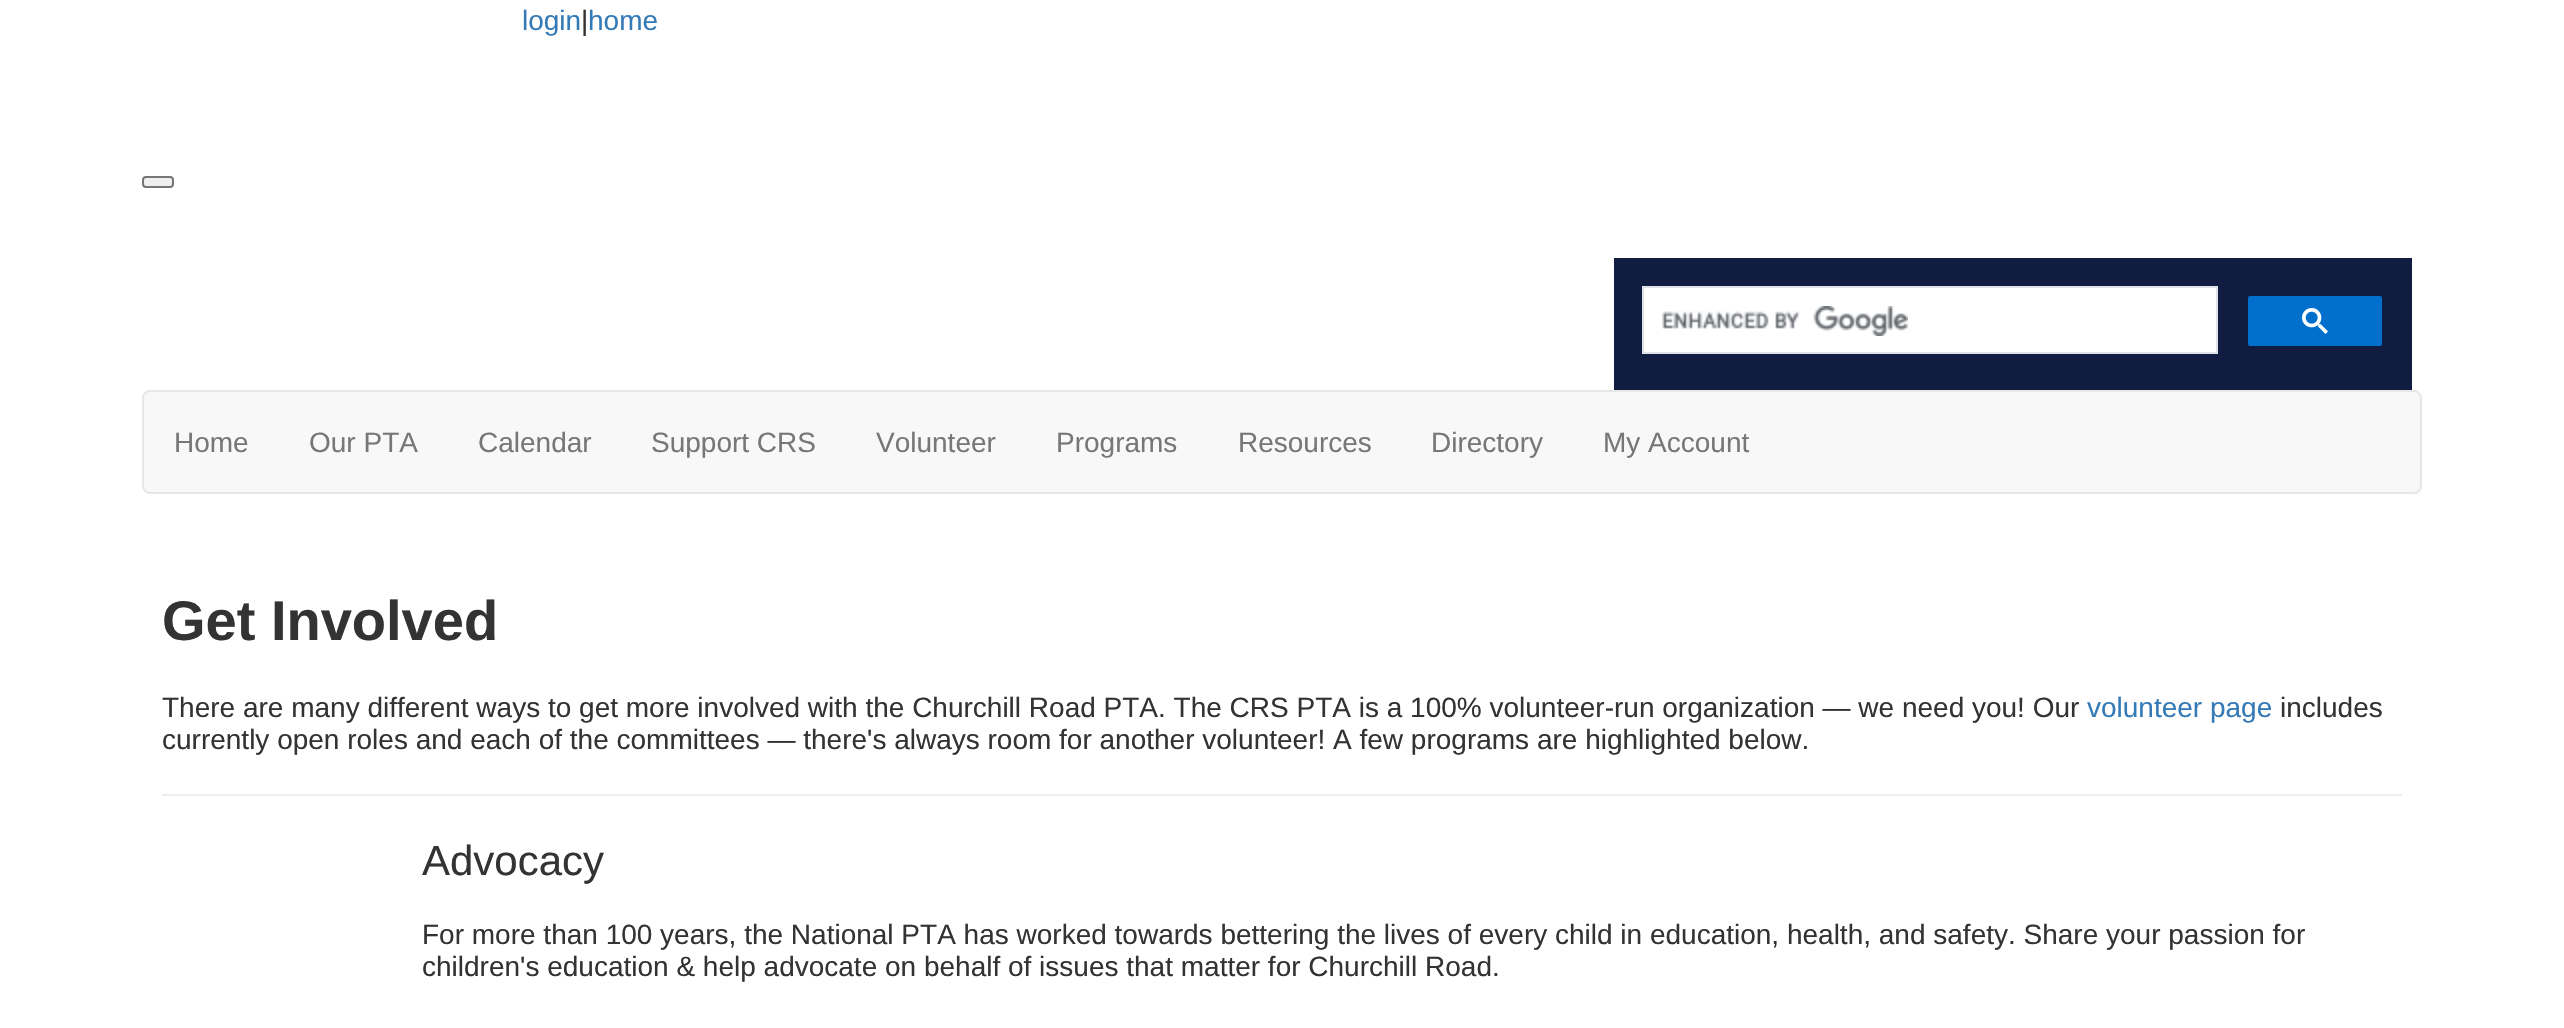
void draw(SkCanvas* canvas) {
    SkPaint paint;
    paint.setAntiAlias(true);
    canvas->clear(0xFFFFFFFF);
    SkFont font1(fontMgr->matchFamilyStyle("Liberation Sans", SkFontStyle::Normal()), 28);
    font1.setSubpixel(true);
    paint.setColor(0xFF337AB7);
    canvas->drawString("login", 522, 30, font1, paint);
    paint.setColor(0xFF333333);
    canvas->drawString("|", 581, 30, font1, paint);
    paint.setColor(0xFF337AB7);
    canvas->drawString("home", 588, 30, font1, paint);
    paint.setColor(0xFFEFEFEF);
    canvas->drawRoundRect(SkRect::MakeXYWH(143, 177, 30, 10), 3, 3, paint);
    paint.setStyle(SkPaint::kStroke_Style);
    paint.setStrokeWidth(2);
    paint.setColor(0xFF767676);
    canvas->drawRoundRect(SkRect::MakeXYWH(143, 177, 30, 10), 3, 3, paint);
    paint.setStyle(SkPaint::kFill_Style);
    paint.setColor(0xFF101D40);
    canvas->drawRect(SkRect::MakeXYWH(1614, 258, 798, 132), paint);
    paint.setColor(0xFFFFFFFF);
    canvas->drawRect(SkRect::MakeXYWH(1643, 287, 574, 66), paint);
    paint.setStyle(SkPaint::kStroke_Style);
    paint.setColor(0xFFDFE1E5);
    canvas->drawRect(SkRect::MakeXYWH(1643, 287, 574, 66), paint);
    canvas->drawImageRect(SkImages::DeferredFromEncodedData(SkData::MakeFromFileName("img1.png")), SkRect::MakeXYWH(1662, 306, 246, 30), SkSamplingOptions());
    paint.setStyle(SkPaint::kFill_Style);
    paint.setColor(0xFF0070CC);
    canvas->drawRoundRect(SkRect::MakeXYWH(2247, 295, 136, 52), 3, 3, paint);
    paint.setStyle(SkPaint::kStroke_Style);
    paint.setColor(0xFF101D40);
    canvas->drawRoundRect(SkRect::MakeXYWH(2247, 295, 136, 52), 3, 3, paint);
    canvas->drawImageRect(SkImages::DeferredFromEncodedData(SkData::MakeFromFileName("img2.png")), SkRect::MakeXYWH(2302, 308, 26, 26), SkSamplingOptions());
    paint.setStyle(SkPaint::kFill_Style);
    paint.setColor(0xFFF8F8F8);
    canvas->drawRoundRect(SkRect::MakeXYWH(143, 391, 2278, 102), 7, 7, paint);
    paint.setStyle(SkPaint::kStroke_Style);
    paint.setColor(0xFFE7E7E7);
    canvas->drawRoundRect(SkRect::MakeXYWH(143, 391, 2278, 102), 7, 7, paint);
    paint.setStyle(SkPaint::kFill_Style);
    paint.setColor(0xFF777777);
    canvas->drawString("Home", 174, 452, font1, paint);
    canvas->drawString("Our PTA", 309, 452, font1, paint);
    canvas->drawString("Calendar", 478, 452, font1, paint);
    canvas->drawString("Support CRS", 651, 452, font1, paint);
    canvas->drawString("Volunteer", 876, 452, font1, paint);
    canvas->drawString("Programs", 1056, 452, font1, paint);
    canvas->drawString("Resources", 1238, 452, font1, paint);
    canvas->drawString("Directory", 1431, 452, font1, paint);
    canvas->drawString("My Account", 1603, 452, font1, paint);
    SkFont font2(fontMgr->matchFamilyStyle("Liberation Sans", SkFontStyle::Bold()), 56);
    font2.setSubpixel(true);
    paint.setColor(0xFF333333);
    canvas->drawString("Get Involved", 162, 640, font2, paint);
    canvas->drawString("There are many different ways to get more involved with the Churchill Road PTA. The CRS PTA is a 100% volunteer-run organization — we need you! Our", 162, 717, font1, paint);
    paint.setColor(0xFF337AB7);
    canvas->drawString("volunteer page", 2087, 717, font1, paint);
    paint.setColor(0xFF333333);
    canvas->drawString("includes", 2280, 717, font1, paint);
    canvas->drawString("currently open roles and each of the committees — there's always room for another volunteer! A few programs are highlighted below.", 162, 749, font1, paint);
    paint.setColor(0xFFEEEEEE);
    canvas->drawRect(SkRect::MakeXYWH(162, 794, 2240, 2), paint);
    SkFont font3(fontMgr->matchFamilyStyle("Liberation Sans", SkFontStyle::Normal()), 42);
    font3.setSubpixel(true);
    paint.setColor(0xFF333333);
    canvas->drawString("Advocacy", 422, 875, font3, paint);
    canvas->drawString("For more than 100 years, the National PTA has worked towards bettering the lives of every child in education, health, and safety. Share your passion for", 422, 944, font1, paint);
    canvas->drawString("children's education & help advocate on behalf of issues that matter for Churchill Road.", 422, 976, font1, paint);
}
